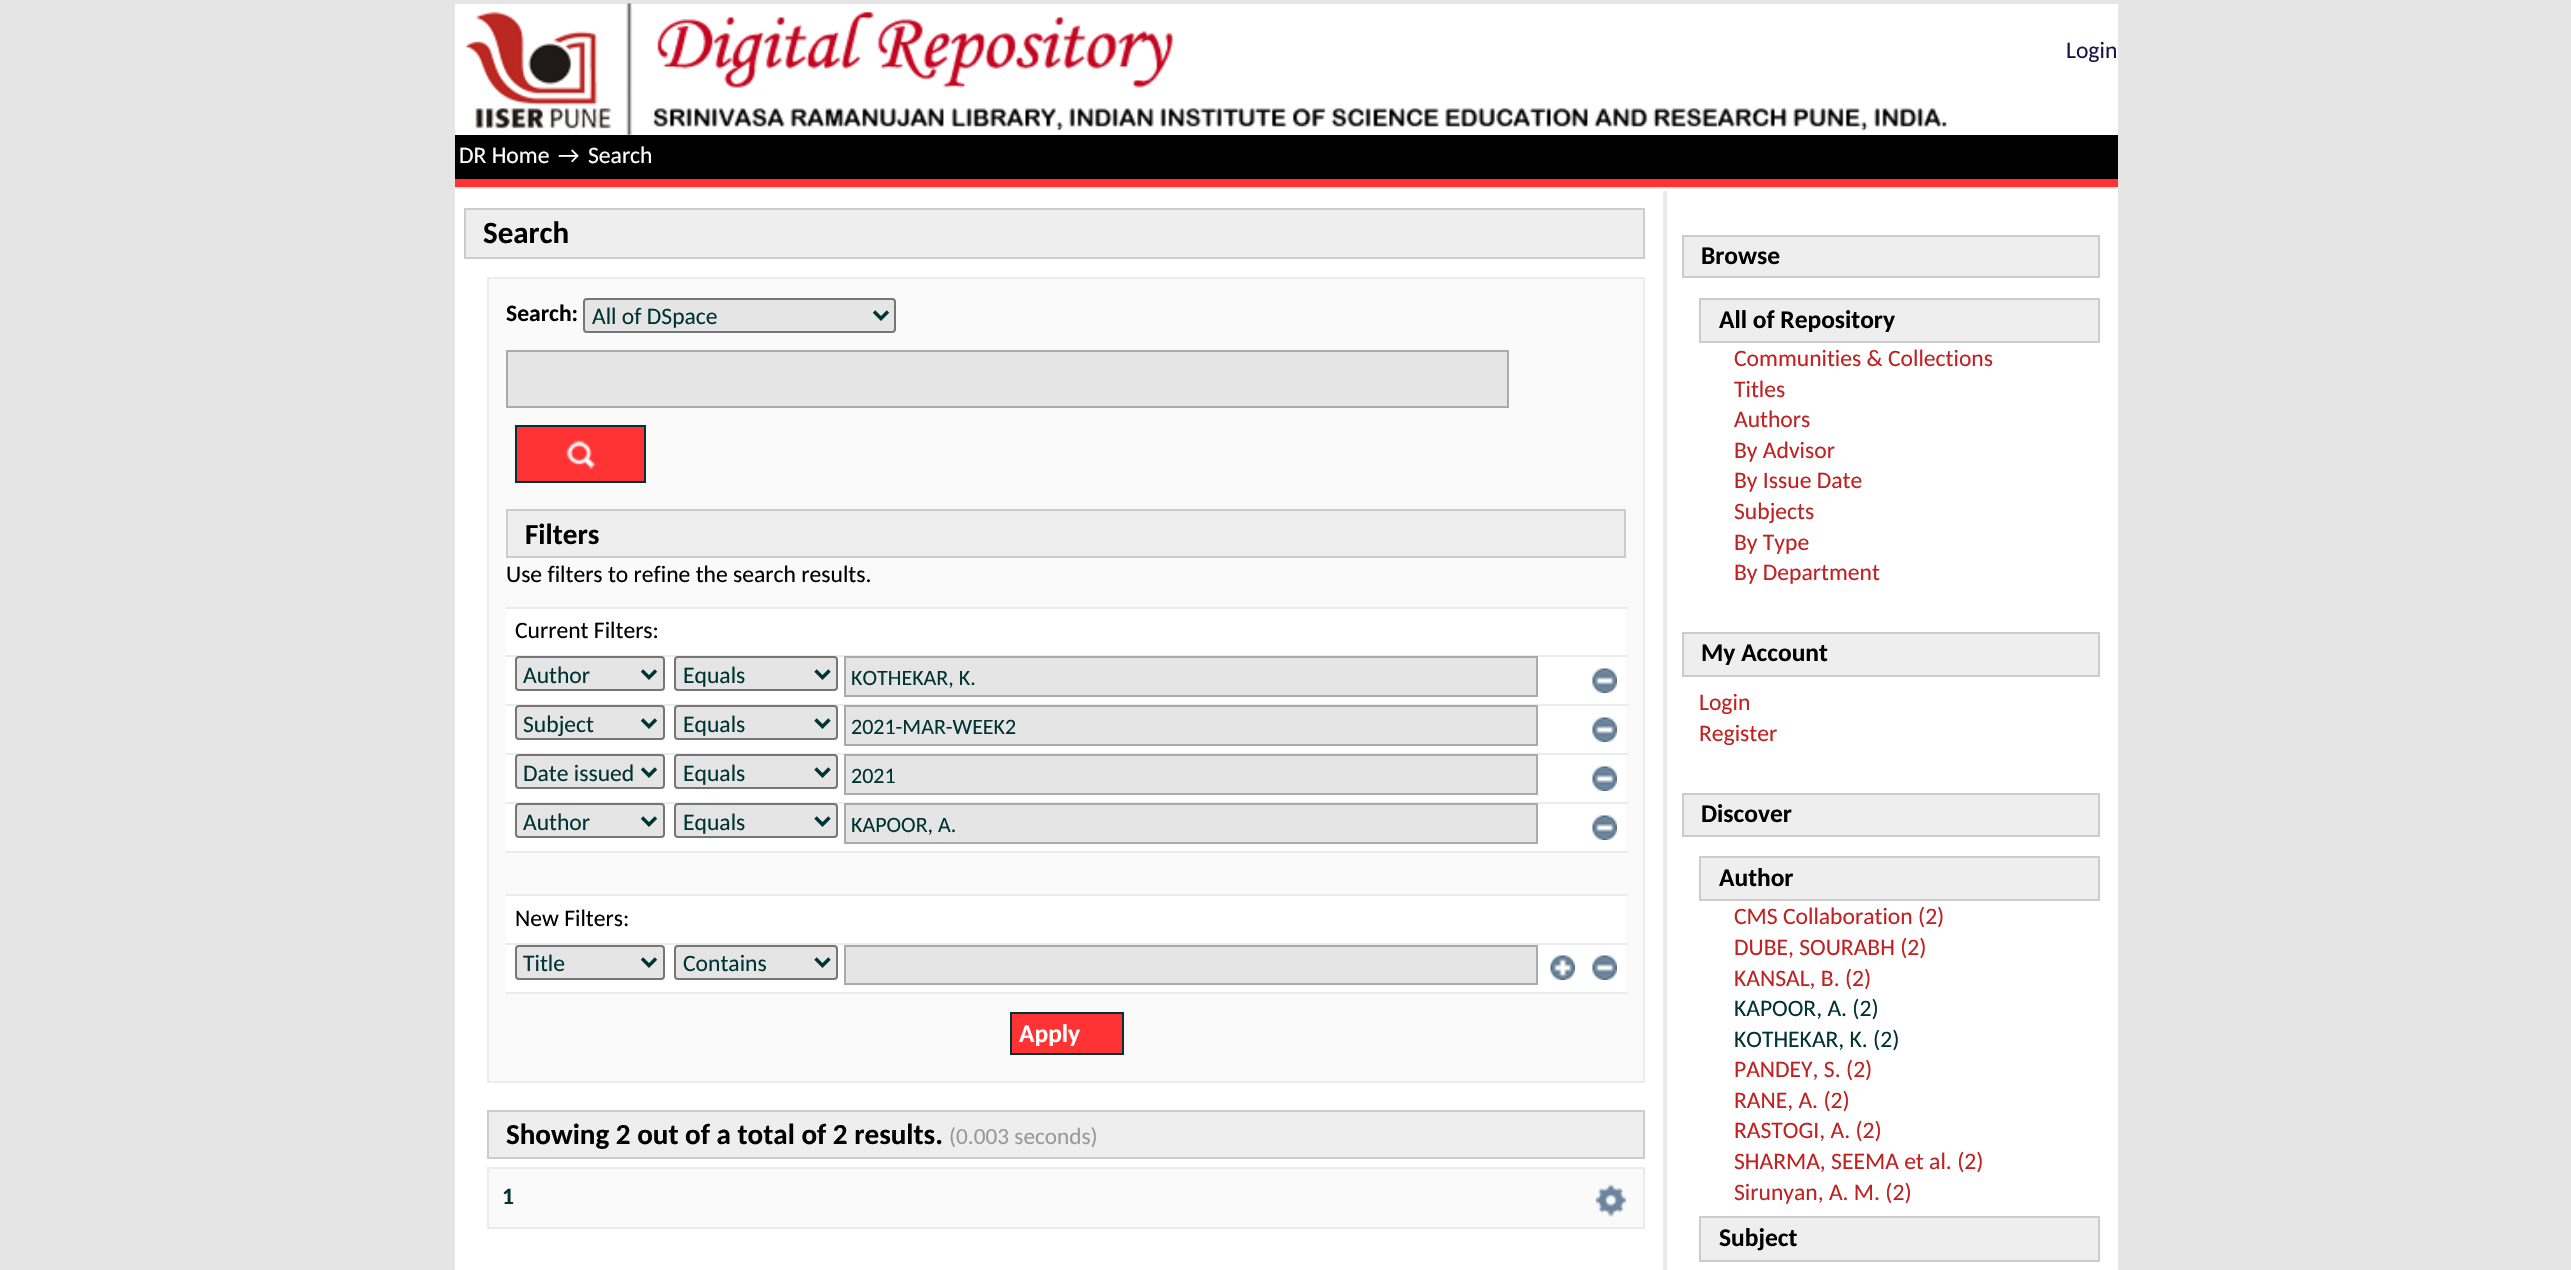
void draw(SkCanvas* canvas) {
    SkPaint paint;
    paint.setAntiAlias(true);
    canvas->clear(0xFFE5E5E5);
    paint.setColor(0xFFFFFFFF);
    canvas->drawRect(SkRect::MakeXYWH(455, 4, 1663, 131), paint);
    canvas->drawImageRect(SkImages::DeferredFromEncodedData(SkData::MakeFromFileName("img1.png")), SkRect::MakeXYWH(465, 3, 1482, 132), SkSamplingOptions());
    SkFont font1(fontMgr->matchFamilyStyle("Carlito", SkFontStyle::Normal()), 23.6f);
    font1.setSubpixel(true);
    paint.setColor(0xFF18154C);
    canvas->drawString("Login", 2066, 58, font1, paint);
    paint.setColor(0xFF000000);
    canvas->drawRect(SkRect::MakeXYWH(455, 135, 1663, 44), paint);
    paint.setColor(0xFFFF3333);
    canvas->drawRect(SkRect::MakeXYWH(455, 179, 1663, 8), paint);
    paint.setColor(0xFFFFFFFF);
    canvas->drawString("DR Home", 459, 163, font1, paint);
    canvas->drawString("→", 558, 163, font1, paint);
    canvas->drawString("Search", 588, 163, font1, paint);
    canvas->drawRect(SkRect::MakeXYWH(455, 189, 1663, 1081), paint);
    paint.setColor(0xFFEBEBEB);
    canvas->drawRect(SkRect::MakeXYWH(1663, 191, 4, 1079), paint);
    paint.setColor(0xFFEEEEEE);
    canvas->drawRect(SkRect::MakeXYWH(465, 209, 1179, 49), paint);
    paint.setStyle(SkPaint::kStroke_Style);
    paint.setStrokeWidth(2);
    paint.setColor(0xFFCCCCCC);
    canvas->drawRect(SkRect::MakeXYWH(465, 209, 1179, 49), paint);
    SkFont font2(fontMgr->matchFamilyStyle("Carlito", SkFontStyle::Bold()), 31);
    font2.setSubpixel(true);
    paint.setStyle(SkPaint::kFill_Style);
    paint.setColor(0xFF000000);
    canvas->drawString("Search", 483, 243, font2, paint);
    paint.setColor(0xFFFAFAFA);
    canvas->drawRect(SkRect::MakeXYWH(488, 278, 1156, 804), paint);
    paint.setStyle(SkPaint::kStroke_Style);
    paint.setColor(0xFFEBEBEB);
    canvas->drawRect(SkRect::MakeXYWH(488, 278, 1156, 804), paint);
    SkFont font3(fontMgr->matchFamilyStyle("Carlito", SkFontStyle::Bold()), 23.6f);
    font3.setSubpixel(true);
    paint.setStyle(SkPaint::kFill_Style);
    paint.setColor(0xFF000000);
    canvas->drawString("Search:", 506, 321, font3, paint);
    paint.setColor(0xFFE5E5E5);
    canvas->drawRoundRect(SkRect::MakeXYWH(584, 299, 311, 33), 3, 3, paint);
    paint.setStyle(SkPaint::kStroke_Style);
    paint.setColor(0xFF767676);
    canvas->drawRoundRect(SkRect::MakeXYWH(584, 299, 311, 33), 3, 3, paint);
    paint.setStrokeWidth(3.5f);
    paint.setColor(0xFF003333);
    canvas->drawPath(SkPathBuilder().moveTo(874, 311.5f).lineTo(881, 318.5f).lineTo(888, 311.5f).detach(), paint);
    paint.setStyle(SkPaint::kFill_Style);
    canvas->drawString("All of DSpace", 592, 324, font1, paint);
    paint.setColor(0xFFE5E5E5);
    canvas->drawRect(SkRect::MakeXYWH(507, 351, 1001, 56), paint);
    paint.setStyle(SkPaint::kStroke_Style);
    paint.setStrokeWidth(2);
    paint.setColor(0xFFAAAAAA);
    canvas->drawRect(SkRect::MakeXYWH(507, 351, 1001, 56), paint);
    paint.setStyle(SkPaint::kFill_Style);
    paint.setColor(0xFFFF3333);
    canvas->drawRect(SkRect::MakeXYWH(517, 427, 127, 54), paint);
    canvas->drawImageRect(SkImages::DeferredFromEncodedData(SkData::MakeFromFileName("img2.png")), SkRect::MakeXYWH(566, 440, 30, 30), SkSamplingOptions());
    paint.setStyle(SkPaint::kStroke_Style);
    paint.setColor(0xFF003333);
    canvas->drawRect(SkRect::MakeXYWH(516, 426, 129, 56), paint);
    paint.setStyle(SkPaint::kFill_Style);
    paint.setColor(0xFFEEEEEE);
    canvas->drawRect(SkRect::MakeXYWH(507, 510, 1118, 47), paint);
    paint.setStyle(SkPaint::kStroke_Style);
    paint.setColor(0xFFCCCCCC);
    canvas->drawRect(SkRect::MakeXYWH(507, 510, 1118, 47), paint);
    SkFont font4(fontMgr->matchFamilyStyle("Carlito", SkFontStyle::Bold()), 29.1f);
    font4.setSubpixel(true);
    paint.setStyle(SkPaint::kFill_Style);
    paint.setColor(0xFF000000);
    canvas->drawString("Filters", 525, 544, font4, paint);
    canvas->drawString("Use filters to refine the search results.", 506, 582, font1, paint);
    paint.setColor(0xFFFFFFFF);
    canvas->drawRect(SkRect::MakeXYWH(506, 609, 1120, 383), paint);
    paint.setColor(0xFFEBEBEB);
    canvas->drawRect(SkRect::MakeXYWH(506, 607, 1122, 2), paint);
    paint.setColor(0xFF000000);
    canvas->drawString("Current Filters:", 515, 638, font1, paint);
    paint.setColor(0xFFEBEBEB);
    canvas->drawRect(SkRect::MakeXYWH(506, 655, 1122, 2), paint);
    paint.setColor(0xFFE5E5E5);
    canvas->drawRoundRect(SkRect::MakeXYWH(516, 657, 148, 33), 3, 3, paint);
    paint.setStyle(SkPaint::kStroke_Style);
    paint.setColor(0xFF767676);
    canvas->drawRoundRect(SkRect::MakeXYWH(516, 657, 148, 33), 3, 3, paint);
    paint.setStrokeWidth(3.5f);
    paint.setColor(0xFF003333);
    canvas->drawPath(SkPathBuilder().moveTo(642, 670.5f).lineTo(649, 677.5f).lineTo(656, 670.5f).detach(), paint);
    paint.setStyle(SkPaint::kFill_Style);
    canvas->drawString("Author", 523, 683, font1, paint);
    paint.setColor(0xFFE5E5E5);
    canvas->drawRoundRect(SkRect::MakeXYWH(675, 657, 162, 33), 3, 3, paint);
    paint.setStyle(SkPaint::kStroke_Style);
    paint.setStrokeWidth(2);
    paint.setColor(0xFF767676);
    canvas->drawRoundRect(SkRect::MakeXYWH(675, 657, 162, 33), 3, 3, paint);
    paint.setStrokeWidth(3.5f);
    paint.setColor(0xFF003333);
    canvas->drawPath(SkPathBuilder().moveTo(815.5f, 670.5f).lineTo(822.5f, 677.5f).lineTo(829.5f, 670.5f).detach(), paint);
    paint.setStyle(SkPaint::kFill_Style);
    canvas->drawString("Equals", 683, 683, font1, paint);
    paint.setColor(0xFFE5E5E5);
    canvas->drawRect(SkRect::MakeXYWH(845, 657, 692, 39), paint);
    paint.setStyle(SkPaint::kStroke_Style);
    paint.setStrokeWidth(2);
    paint.setColor(0xFFAAAAAA);
    canvas->drawRect(SkRect::MakeXYWH(845, 657, 692, 39), paint);
    SkFont font5(fontMgr->matchFamilyStyle("Carlito", SkFontStyle::Normal()), 22);
    font5.setSubpixel(true);
    paint.setStyle(SkPaint::kFill_Style);
    paint.setColor(0xFF003333);
    canvas->drawString("KOTHEKAR, K.", 851, 685, font5, paint);
    canvas->drawImageRect(SkImages::DeferredFromEncodedData(SkData::MakeFromFileName("img3.png")), SkRect::MakeXYWH(1592, 668, 25, 25), SkSamplingOptions());
    paint.setColor(0xFFEBEBEB);
    canvas->drawRect(SkRect::MakeXYWH(506, 704, 1122, 2), paint);
    paint.setColor(0xFFE5E5E5);
    canvas->drawRoundRect(SkRect::MakeXYWH(516, 706, 148, 33), 3, 3, paint);
    paint.setStyle(SkPaint::kStroke_Style);
    paint.setColor(0xFF767676);
    canvas->drawRoundRect(SkRect::MakeXYWH(516, 706, 148, 33), 3, 3, paint);
    paint.setStrokeWidth(3.5f);
    paint.setColor(0xFF003333);
    canvas->drawPath(SkPathBuilder().moveTo(642, 719.5f).lineTo(649, 726.5f).lineTo(656, 719.5f).detach(), paint);
    paint.setStyle(SkPaint::kFill_Style);
    canvas->drawString("Subject", 523, 732, font1, paint);
    paint.setColor(0xFFE5E5E5);
    canvas->drawRoundRect(SkRect::MakeXYWH(675, 706, 162, 33), 3, 3, paint);
    paint.setStyle(SkPaint::kStroke_Style);
    paint.setStrokeWidth(2);
    paint.setColor(0xFF767676);
    canvas->drawRoundRect(SkRect::MakeXYWH(675, 706, 162, 33), 3, 3, paint);
    paint.setStrokeWidth(3.5f);
    paint.setColor(0xFF003333);
    canvas->drawPath(SkPathBuilder().moveTo(815.5f, 719.5f).lineTo(822.5f, 726.5f).lineTo(829.5f, 719.5f).detach(), paint);
    paint.setStyle(SkPaint::kFill_Style);
    canvas->drawString("Equals", 683, 732, font1, paint);
    paint.setColor(0xFFE5E5E5);
    canvas->drawRect(SkRect::MakeXYWH(845, 706, 692, 39), paint);
    paint.setStyle(SkPaint::kStroke_Style);
    paint.setStrokeWidth(2);
    paint.setColor(0xFFAAAAAA);
    canvas->drawRect(SkRect::MakeXYWH(845, 706, 692, 39), paint);
    paint.setStyle(SkPaint::kFill_Style);
    paint.setColor(0xFF003333);
    canvas->drawString("2021-MAR-WEEK2", 851, 734, font5, paint);
    canvas->drawImageRect(SkImages::DeferredFromEncodedData(SkData::MakeFromFileName("img3.png")), SkRect::MakeXYWH(1592, 717, 25, 25), SkSamplingOptions());
    paint.setColor(0xFFEBEBEB);
    canvas->drawRect(SkRect::MakeXYWH(506, 753, 1122, 2), paint);
    paint.setColor(0xFFE5E5E5);
    canvas->drawRoundRect(SkRect::MakeXYWH(516, 755, 148, 33), 3, 3, paint);
    paint.setStyle(SkPaint::kStroke_Style);
    paint.setColor(0xFF767676);
    canvas->drawRoundRect(SkRect::MakeXYWH(516, 755, 148, 33), 3, 3, paint);
    paint.setStrokeWidth(3.5f);
    paint.setColor(0xFF003333);
    canvas->drawPath(SkPathBuilder().moveTo(642, 768.5f).lineTo(649, 775.5f).lineTo(656, 768.5f).detach(), paint);
    paint.setStyle(SkPaint::kFill_Style);
    canvas->drawString("Date issued", 523, 781, font1, paint);
    paint.setColor(0xFFE5E5E5);
    canvas->drawRoundRect(SkRect::MakeXYWH(675, 755, 162, 33), 3, 3, paint);
    paint.setStyle(SkPaint::kStroke_Style);
    paint.setStrokeWidth(2);
    paint.setColor(0xFF767676);
    canvas->drawRoundRect(SkRect::MakeXYWH(675, 755, 162, 33), 3, 3, paint);
    paint.setStrokeWidth(3.5f);
    paint.setColor(0xFF003333);
    canvas->drawPath(SkPathBuilder().moveTo(815.5f, 768.5f).lineTo(822.5f, 775.5f).lineTo(829.5f, 768.5f).detach(), paint);
    paint.setStyle(SkPaint::kFill_Style);
    canvas->drawString("Equals", 683, 781, font1, paint);
    paint.setColor(0xFFE5E5E5);
    canvas->drawRect(SkRect::MakeXYWH(845, 755, 692, 39), paint);
    paint.setStyle(SkPaint::kStroke_Style);
    paint.setStrokeWidth(2);
    paint.setColor(0xFFAAAAAA);
    canvas->drawRect(SkRect::MakeXYWH(845, 755, 692, 39), paint);
    paint.setStyle(SkPaint::kFill_Style);
    paint.setColor(0xFF003333);
    canvas->drawString("2021", 851, 783, font5, paint);
    canvas->drawImageRect(SkImages::DeferredFromEncodedData(SkData::MakeFromFileName("img3.png")), SkRect::MakeXYWH(1592, 766, 25, 25), SkSamplingOptions());
    paint.setColor(0xFFEBEBEB);
    canvas->drawRect(SkRect::MakeXYWH(506, 802, 1122, 2), paint);
    paint.setColor(0xFFE5E5E5);
    canvas->drawRoundRect(SkRect::MakeXYWH(516, 804, 148, 33), 3, 3, paint);
    paint.setStyle(SkPaint::kStroke_Style);
    paint.setColor(0xFF767676);
    canvas->drawRoundRect(SkRect::MakeXYWH(516, 804, 148, 33), 3, 3, paint);
    paint.setStrokeWidth(3.5f);
    paint.setColor(0xFF003333);
    canvas->drawPath(SkPathBuilder().moveTo(642, 817.5f).lineTo(649, 824.5f).lineTo(656, 817.5f).detach(), paint);
    paint.setStyle(SkPaint::kFill_Style);
    canvas->drawString("Author", 523, 830, font1, paint);
    paint.setColor(0xFFE5E5E5);
    canvas->drawRoundRect(SkRect::MakeXYWH(675, 804, 162, 33), 3, 3, paint);
    paint.setStyle(SkPaint::kStroke_Style);
    paint.setStrokeWidth(2);
    paint.setColor(0xFF767676);
    canvas->drawRoundRect(SkRect::MakeXYWH(675, 804, 162, 33), 3, 3, paint);
    paint.setStrokeWidth(3.5f);
    paint.setColor(0xFF003333);
    canvas->drawPath(SkPathBuilder().moveTo(815.5f, 817.5f).lineTo(822.5f, 824.5f).lineTo(829.5f, 817.5f).detach(), paint);
    paint.setStyle(SkPaint::kFill_Style);
    canvas->drawString("Equals", 683, 830, font1, paint);
    paint.setColor(0xFFE5E5E5);
    canvas->drawRect(SkRect::MakeXYWH(845, 804, 692, 39), paint);
    paint.setStyle(SkPaint::kStroke_Style);
    paint.setStrokeWidth(2);
    paint.setColor(0xFFAAAAAA);
    canvas->drawRect(SkRect::MakeXYWH(845, 804, 692, 39), paint);
    paint.setStyle(SkPaint::kFill_Style);
    paint.setColor(0xFF003333);
    canvas->drawString("KAPOOR, A.", 851, 832, font5, paint);
    canvas->drawImageRect(SkImages::DeferredFromEncodedData(SkData::MakeFromFileName("img3.png")), SkRect::MakeXYWH(1592, 815, 25, 25), SkSamplingOptions());
    paint.setColor(0xFFFAFAFA);
    canvas->drawRect(SkRect::MakeXYWH(506, 853, 1120, 41), paint);
    paint.setColor(0xFFEBEBEB);
    canvas->drawRect(SkRect::MakeXYWH(506, 851, 1122, 2), paint);
    canvas->drawRect(SkRect::MakeXYWH(506, 894, 1122, 2), paint);
    paint.setColor(0xFF000000);
    canvas->drawString("New Filters:", 515, 926, font1, paint);
    paint.setColor(0xFFEBEBEB);
    canvas->drawRect(SkRect::MakeXYWH(506, 943, 1122, 2), paint);
    paint.setColor(0xFFE5E5E5);
    canvas->drawRoundRect(SkRect::MakeXYWH(516, 946, 148, 33), 3, 3, paint);
    paint.setStyle(SkPaint::kStroke_Style);
    paint.setColor(0xFF767676);
    canvas->drawRoundRect(SkRect::MakeXYWH(516, 946, 148, 33), 3, 3, paint);
    paint.setStrokeWidth(3.5f);
    paint.setColor(0xFF003333);
    canvas->drawPath(SkPathBuilder().moveTo(642, 958.5f).lineTo(649, 965.5f).lineTo(656, 958.5f).detach(), paint);
    paint.setStyle(SkPaint::kFill_Style);
    canvas->drawString("Title", 523, 971, font1, paint);
    paint.setColor(0xFFE5E5E5);
    canvas->drawRoundRect(SkRect::MakeXYWH(675, 946, 162, 33), 3, 3, paint);
    paint.setStyle(SkPaint::kStroke_Style);
    paint.setStrokeWidth(2);
    paint.setColor(0xFF767676);
    canvas->drawRoundRect(SkRect::MakeXYWH(675, 946, 162, 33), 3, 3, paint);
    paint.setStrokeWidth(3.5f);
    paint.setColor(0xFF003333);
    canvas->drawPath(SkPathBuilder().moveTo(815.5f, 958.5f).lineTo(822.5f, 965.5f).lineTo(829.5f, 958.5f).detach(), paint);
    paint.setStyle(SkPaint::kFill_Style);
    canvas->drawString("Contains", 683, 971, font1, paint);
    paint.setColor(0xFFE5E5E5);
    canvas->drawRect(SkRect::MakeXYWH(845, 946, 692, 38), paint);
    paint.setStyle(SkPaint::kStroke_Style);
    paint.setStrokeWidth(2);
    paint.setColor(0xFFAAAAAA);
    canvas->drawRect(SkRect::MakeXYWH(845, 946, 692, 38), paint);
    canvas->drawImageRect(SkImages::DeferredFromEncodedData(SkData::MakeFromFileName("img4.png")), SkRect::MakeXYWH(1550, 955, 25, 25), SkSamplingOptions());
    canvas->drawImageRect(SkImages::DeferredFromEncodedData(SkData::MakeFromFileName("img3.png")), SkRect::MakeXYWH(1592, 955, 25, 25), SkSamplingOptions());
    paint.setStyle(SkPaint::kFill_Style);
    paint.setColor(0xFFEBEBEB);
    canvas->drawRect(SkRect::MakeXYWH(506, 992, 1122, 2), paint);
    paint.setColor(0xFFFF3333);
    canvas->drawRect(SkRect::MakeXYWH(1011, 1013, 112, 41), paint);
    paint.setStyle(SkPaint::kStroke_Style);
    paint.setColor(0xFF003333);
    canvas->drawRect(SkRect::MakeXYWH(1011, 1013, 112, 41), paint);
    SkFont font6(fontMgr->matchFamilyStyle("Carlito", SkFontStyle::Bold()), 25.5f);
    font6.setSubpixel(true);
    paint.setStyle(SkPaint::kFill_Style);
    paint.setColor(0xFFFFFFFF);
    canvas->drawString("Apply", 1019, 1042, font6, paint);
    paint.setColor(0xFFEEEEEE);
    canvas->drawRect(SkRect::MakeXYWH(488, 1111, 1156, 47), paint);
    paint.setStyle(SkPaint::kStroke_Style);
    paint.setColor(0xFFCCCCCC);
    canvas->drawRect(SkRect::MakeXYWH(488, 1111, 1156, 47), paint);
    paint.setStyle(SkPaint::kFill_Style);
    paint.setColor(0xFF000000);
    canvas->drawString("Showing 2 out of a total of 2 results.", 506, 1144, font4, paint);
    SkFont font7(fontMgr->matchFamilyStyle("Carlito", SkFontStyle::Normal()), 23.25f);
    font7.setSubpixel(true);
    paint.setColor(0xFF999999);
    canvas->drawString("(0.003 seconds)", 949, 1144, font7, paint);
    paint.setColor(0xFFFAFAFA);
    canvas->drawRect(SkRect::MakeXYWH(488, 1168, 1156, 60), paint);
    paint.setStyle(SkPaint::kStroke_Style);
    paint.setColor(0xFFEBEBEB);
    canvas->drawRect(SkRect::MakeXYWH(488, 1168, 1156, 60), paint);
    paint.setStyle(SkPaint::kFill_Style);
    paint.setColor(0xFF003333);
    canvas->drawString("1", 502, 1204, font3, paint);
    canvas->drawImageRect(SkImages::DeferredFromEncodedData(SkData::MakeFromFileName("img5.png")), SkRect::MakeXYWH(1595, 1184, 32, 33), SkSamplingOptions());
    paint.setColor(0xFFEEEEEE);
    canvas->drawRect(SkRect::MakeXYWH(1683, 236, 416, 41), paint);
    paint.setStyle(SkPaint::kStroke_Style);
    paint.setColor(0xFFCCCCCC);
    canvas->drawRect(SkRect::MakeXYWH(1683, 236, 416, 41), paint);
    paint.setStyle(SkPaint::kFill_Style);
    paint.setColor(0xFF000000);
    canvas->drawString("Browse", 1701, 264, font6, paint);
    paint.setColor(0xFFEEEEEE);
    canvas->drawRect(SkRect::MakeXYWH(1700, 299, 399, 43), paint);
    paint.setStyle(SkPaint::kStroke_Style);
    paint.setColor(0xFFCCCCCC);
    canvas->drawRect(SkRect::MakeXYWH(1700, 299, 399, 43), paint);
    paint.setStyle(SkPaint::kFill_Style);
    paint.setColor(0xFF000000);
    canvas->drawString("All of Repository", 1719, 328, font6, paint);
    paint.setColor(0xFFC22121);
    canvas->drawString("Communities & Collections", 1734, 366, font1, paint);
    canvas->drawString("Titles", 1734, 397, font1, paint);
    canvas->drawString("Authors", 1734, 427, font1, paint);
    canvas->drawString("By Advisor", 1734, 458, font1, paint);
    canvas->drawString("By Issue Date", 1734, 488, font1, paint);
    canvas->drawString("Subjects", 1734, 519, font1, paint);
    canvas->drawString("By Type", 1734, 550, font1, paint);
    canvas->drawString("By Department", 1734, 580, font1, paint);
    paint.setColor(0xFFEEEEEE);
    canvas->drawRect(SkRect::MakeXYWH(1683, 633, 416, 43), paint);
    paint.setStyle(SkPaint::kStroke_Style);
    paint.setColor(0xFFCCCCCC);
    canvas->drawRect(SkRect::MakeXYWH(1683, 633, 416, 43), paint);
    paint.setStyle(SkPaint::kFill_Style);
    paint.setColor(0xFF000000);
    canvas->drawString("My Account", 1701, 661, font6, paint);
    paint.setColor(0xFFC22121);
    canvas->drawString("Login", 1699, 710, font1, paint);
    canvas->drawString("Register", 1699, 741, font1, paint);
    paint.setColor(0xFFEEEEEE);
    canvas->drawRect(SkRect::MakeXYWH(1683, 794, 416, 42), paint);
    paint.setStyle(SkPaint::kStroke_Style);
    paint.setColor(0xFFCCCCCC);
    canvas->drawRect(SkRect::MakeXYWH(1683, 794, 416, 42), paint);
    paint.setStyle(SkPaint::kFill_Style);
    paint.setColor(0xFF000000);
    canvas->drawString("Discover", 1701, 822, font6, paint);
    paint.setColor(0xFFEEEEEE);
    canvas->drawRect(SkRect::MakeXYWH(1700, 857, 399, 43), paint);
    paint.setStyle(SkPaint::kStroke_Style);
    paint.setColor(0xFFCCCCCC);
    canvas->drawRect(SkRect::MakeXYWH(1700, 857, 399, 43), paint);
    paint.setStyle(SkPaint::kFill_Style);
    paint.setColor(0xFF000000);
    canvas->drawString("Author", 1719, 886, font6, paint);
    paint.setColor(0xFFC22121);
    canvas->drawString("CMS Collaboration (2)", 1734, 924, font1, paint);
    canvas->drawString("DUBE, SOURABH (2)", 1734, 955, font1, paint);
    canvas->drawString("KANSAL, B. (2)", 1734, 986, font1, paint);
    paint.setColor(0xFF003333);
    canvas->drawString("KAPOOR, A. (2)", 1734, 1016, font1, paint);
    canvas->drawString("KOTHEKAR, K. (2)", 1734, 1047, font1, paint);
    paint.setColor(0xFFC22121);
    canvas->drawString("PANDEY, S. (2)", 1734, 1077, font1, paint);
    canvas->drawString("RANE, A. (2)", 1734, 1108, font1, paint);
    canvas->drawString("RASTOGI, A. (2)", 1734, 1138, font1, paint);
    canvas->drawString("SHARMA, SEEMA et al. (2)", 1734, 1169, font1, paint);
    canvas->drawString("Sirunyan, A. M. (2)", 1734, 1200, font1, paint);
    paint.setColor(0xFFEEEEEE);
    canvas->drawRect(SkRect::MakeXYWH(1700, 1217, 399, 44), paint);
    paint.setStyle(SkPaint::kStroke_Style);
    paint.setColor(0xFFCCCCCC);
    canvas->drawRect(SkRect::MakeXYWH(1700, 1217, 399, 44), paint);
    paint.setStyle(SkPaint::kFill_Style);
    paint.setColor(0xFF000000);
    canvas->drawString("Subject", 1719, 1246, font6, paint);
}
